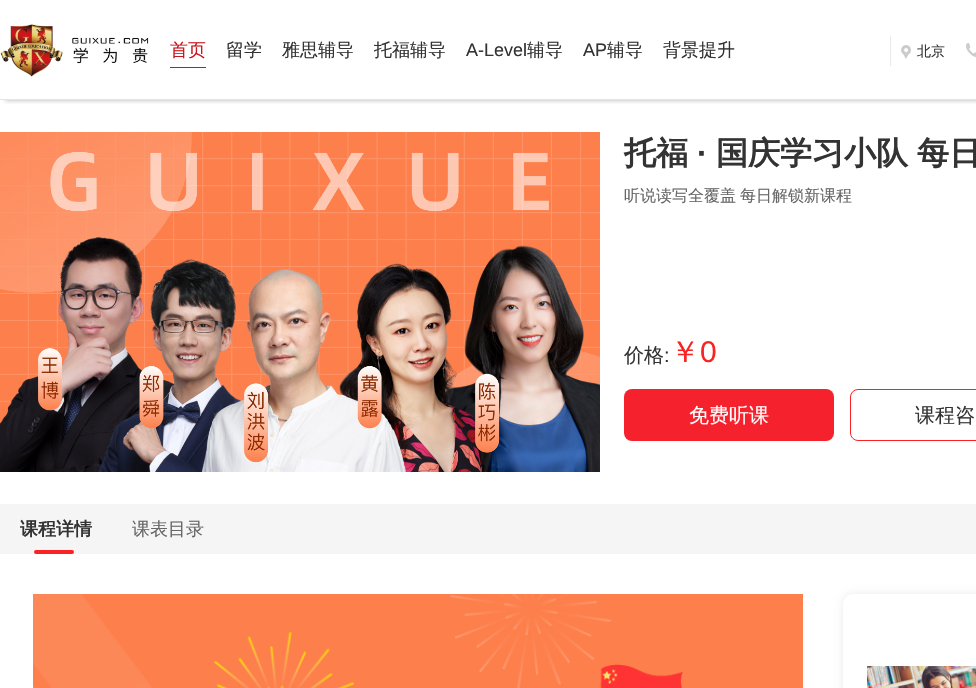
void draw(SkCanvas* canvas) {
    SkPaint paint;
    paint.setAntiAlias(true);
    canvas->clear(0xFFFFFFFF);
    canvas->save();
    canvas->clipRect(SkRect::MakeXYWH(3, 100, 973, 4));
    paint.setColor(0x4D000000);
    paint.setMaskFilter(SkMaskFilter::MakeBlur(kNormal_SkBlurStyle, 2.5f));
    canvas->drawRect(SkRect::MakeXYWH(5, 0, 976, 100), paint);
    paint.setMaskFilter(nullptr);
    canvas->restore();
    paint.setColor(0xFFE4E4E4);
    canvas->drawRect(SkRect::MakeXYWH(0, 99, 976, 1), paint);
    canvas->drawImageRect(SkImages::DeferredFromEncodedData(SkData::MakeFromFileName("img1.png")), SkRect::MakeXYWH(0, 24, 149, 53), SkSamplingOptions());
    SkFont font1(fontMgr->matchFamilyStyle("WenQuanYi Zen Hei", SkFontStyle(500, SkFontStyle::kNormal_Width, SkFontStyle::kUpright_Slant)), 18);
    font1.setSubpixel(true);
    paint.setColor(0xFFC8161E);
    canvas->drawString("首页", 170, 56, font1, paint);
    canvas->drawRect(SkRect::MakeXYWH(170, 67, 36, 1), paint);
    paint.setColor(0xFF333333);
    canvas->drawString("留学", 226, 56, font1, paint);
    canvas->drawString("雅思辅导", 282, 56, font1, paint);
    canvas->drawString("托福辅导", 374, 56, font1, paint);
    SkFont font2(fontMgr->matchFamilyStyle("Liberation Sans", SkFontStyle::Normal()), 18);
    font2.setSubpixel(true);
    canvas->drawString("A-Level", 466, 56, font2, paint);
    canvas->drawString("辅导", 527, 56, font1, paint);
    canvas->drawString("AP", 583, 56, font2, paint);
    canvas->drawString("辅导", 607, 56, font1, paint);
    canvas->drawString("背景提升", 663, 56, font1, paint);
    paint.setColor(0xFFE9E9E9);
    canvas->drawPath(SkPathBuilder().moveTo(890, 66).lineTo(890, 35).lineTo(891, 36).lineTo(891, 66).close().detach(), paint);
    canvas->drawImageRect(SkImages::DeferredFromEncodedData(SkData::MakeFromFileName("img2.png")), SkRect::MakeXYWH(901, 45, 10, 14), SkSamplingOptions());
    SkFont font3(fontMgr->matchFamilyStyle("WenQuanYi Zen Hei", SkFontStyle(500, SkFontStyle::kNormal_Width, SkFontStyle::kUpright_Slant)), 14);
    font3.setSubpixel(true);
    paint.setColor(0xFF333333);
    canvas->drawString("北京", 917, 56, font3, paint);
    canvas->drawImageRect(SkImages::DeferredFromEncodedData(SkData::MakeFromFileName("img3.png")), SkRect::MakeXYWH(966, 43, 10, 14), SkSamplingOptions());
    canvas->drawImageRect(SkImages::DeferredFromEncodedData(SkData::MakeFromFileName("img4.png")), SkRect::MakeXYWH(0, 132, 600, 340), SkSamplingOptions());
    SkFont font4(fontMgr->matchFamilyStyle("WenQuanYi Zen Hei", SkFontStyle::Bold()), 32);
    font4.setSubpixel(true);
    canvas->drawString("托福", 624, 164, font4, paint);
    SkFont font5(fontMgr->matchFamilyStyle("Liberation Sans", SkFontStyle::Bold()), 32);
    font5.setSubpixel(true);
    canvas->drawString("·", 697, 164, font5, paint);
    canvas->drawString("国庆学习小队", 716, 164, font4, paint);
    canvas->drawString("每日", 917, 164, font4, paint);
    SkFont font6(fontMgr->matchFamilyStyle("WenQuanYi Zen Hei", SkFontStyle(500, SkFontStyle::kNormal_Width, SkFontStyle::kUpright_Slant)), 16);
    font6.setSubpixel(true);
    paint.setColor(0xFF666666);
    canvas->drawString("听说读写全覆盖", 624, 201, font6, paint);
    canvas->drawString("每日解锁新课程", 740, 201, font6, paint);
    SkFont font7(fontMgr->matchFamilyStyle("WenQuanYi Zen Hei", SkFontStyle(500, SkFontStyle::kNormal_Width, SkFontStyle::kUpright_Slant)), 20);
    font7.setSubpixel(true);
    paint.setColor(0xFF333333);
    canvas->drawString("价格", 624, 362, font7, paint);
    SkFont font8(fontMgr->matchFamilyStyle("Liberation Sans", SkFontStyle::Normal()), 20);
    font8.setSubpixel(true);
    canvas->drawString(":", 664, 362, font8, paint);
    SkFont font9(fontMgr->matchFamilyStyle("WenQuanYi Zen Hei", SkFontStyle(500, SkFontStyle::kNormal_Width, SkFontStyle::kUpright_Slant)), 30);
    font9.setSubpixel(true);
    paint.setColor(0xFFFA2222);
    canvas->drawString("￥", 670, 362, font9, paint);
    SkFont font10(fontMgr->matchFamilyStyle("Liberation Sans", SkFontStyle::Normal()), 30);
    font10.setSubpixel(true);
    canvas->drawString("0", 700, 362, font10, paint);
    paint.setColor(0xFFF5222D);
    canvas->drawRoundRect(SkRect::MakeXYWH(624, 389, 210, 52), 8, 8, paint);
    paint.setColor(0xFFFFFFFF);
    canvas->drawString("免费听课", 689, 422, font7, paint);
    paint.setStyle(SkPaint::kStroke_Style);
    paint.setStrokeWidth(1);
    paint.setColor(0xFFFA2222);
    canvas->drawRoundRect(SkRect::MakeXYWH(850.5f, 389.5f, 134, 51), 7.5f, 7.5f, paint);
    paint.setStyle(SkPaint::kFill_Style);
    paint.setColor(0xFF333333);
    canvas->drawString("课程咨", 915, 422, font7, paint);
    paint.setColor(0xFFF5F5F5);
    canvas->drawRect(SkRect::MakeXYWH(0, 504, 976, 50), paint);
    SkFont font11(fontMgr->matchFamilyStyle("WenQuanYi Zen Hei", SkFontStyle::Bold()), 18);
    font11.setSubpixel(true);
    paint.setColor(0xFF333333);
    canvas->drawString("课程详情", 20, 535, font11, paint);
    paint.setColor(0xFFFA2222);
    canvas->drawRoundRect(SkRect::MakeXYWH(34, 550, 40, 4), 2, 2, paint);
    paint.setColor(0xFF666666);
    canvas->drawString("课表目录", 132, 535, font1, paint);
    canvas->drawImageRect(SkImages::DeferredFromEncodedData(SkData::MakeFromFileName("img5.png")), SkRect::MakeXYWH(33, 594, 770, 94), SkSamplingOptions());
    paint.setColor(0x14000000);
    paint.setMaskFilter(SkMaskFilter::MakeBlur(kNormal_SkBlurStyle, 4));
    canvas->drawRoundRect(SkRect::MakeXYWH(843, 594, 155, 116), 10, 10, paint);
    paint.setMaskFilter(nullptr);
    paint.setColor(0xFFFFFFFF);
    canvas->drawRoundRect(SkRect::MakeXYWH(843, 594, 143, 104), 10, 10, paint);
    canvas->drawImageRect(SkImages::DeferredFromEncodedData(SkData::MakeFromFileName("img6.png")), SkRect::MakeXYWH(867, 666, 109, 22), SkSamplingOptions());
}
